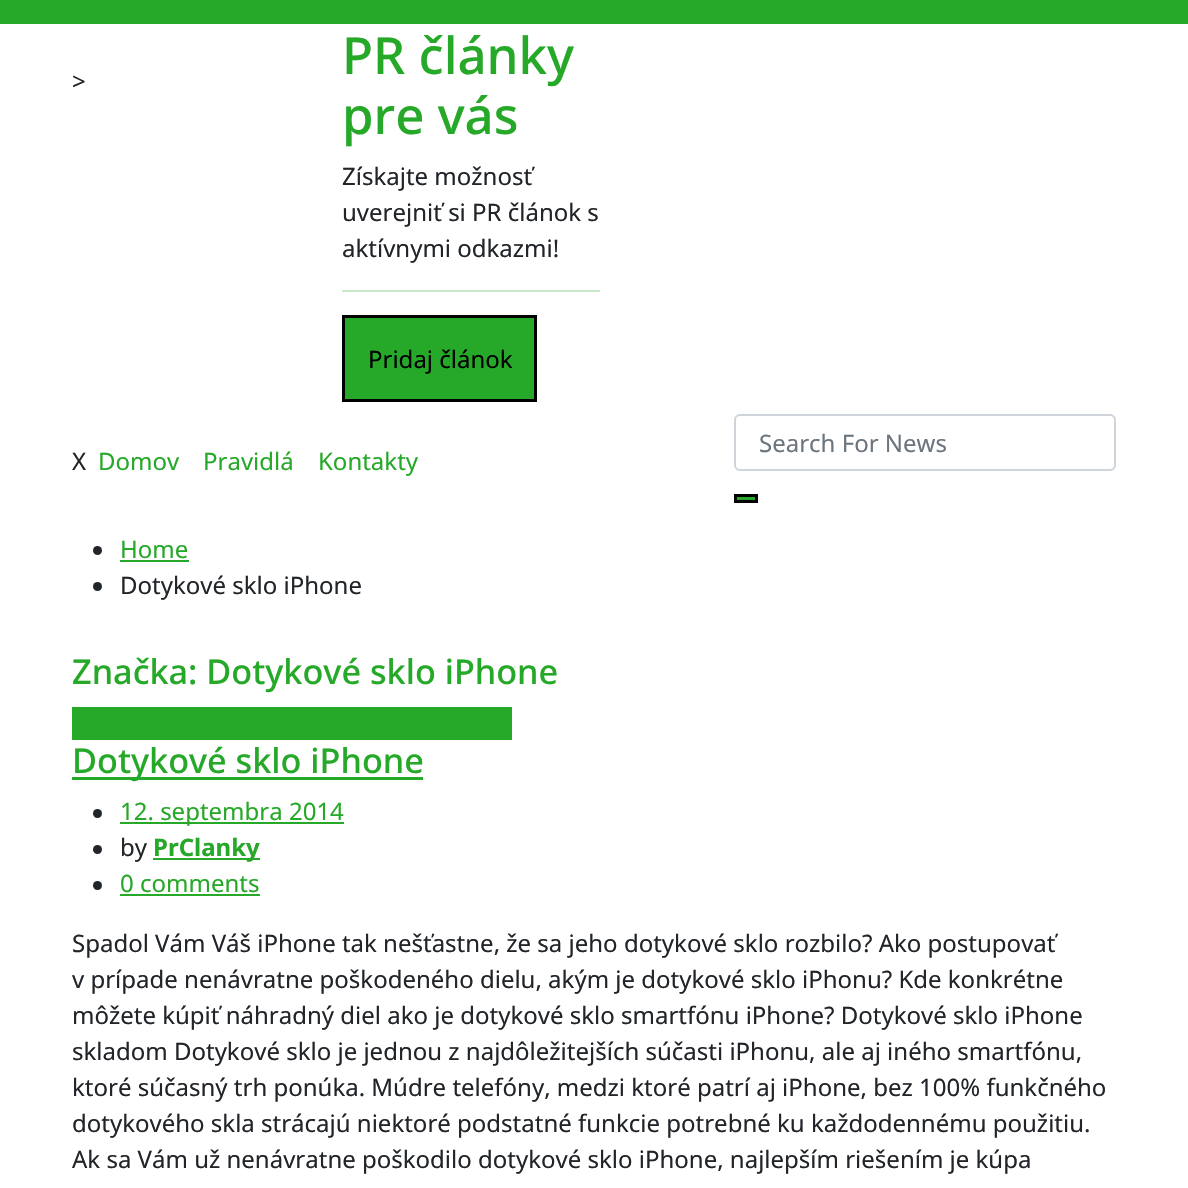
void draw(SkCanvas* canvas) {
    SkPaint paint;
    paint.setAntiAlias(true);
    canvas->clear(0xFFFFFFFF);
    paint.setColor(0xFF26A828);
    canvas->drawRect(SkRect::MakeXYWH(0, 0, 1188, 24), paint);
    SkFont font1(fontMgr->matchFamilyStyle("Noto Sans", SkFontStyle::Normal()), 24);
    font1.setSubpixel(true);
    paint.setColor(0xFF212529);
    canvas->drawString(">", 72, 90, font1, paint);
    SkFont font2(fontMgr->matchFamilyStyle("Noto Sans", SkFontStyle(500, SkFontStyle::kNormal_Width, SkFontStyle::kUpright_Slant)), 51);
    font2.setSubpixel(true);
    paint.setColor(0xFF26A828);
    canvas->drawString("PR články", 342, 74, font2, paint);
    canvas->drawString("pre vás", 342, 134, font2, paint);
    paint.setColor(0xFF212529);
    canvas->drawString("Získajte možnosť", 342, 185, font1, paint);
    canvas->drawString("uverejniť si PR článok s", 342, 221, font1, paint);
    canvas->drawString("aktívnymi odkazmi!", 342, 257, font1, paint);
    paint.setColor(0xFFC9E9C9);
    canvas->drawRect(SkRect::MakeXYWH(342, 290, 258, 2), paint);
    paint.setColor(0xFF26A828);
    canvas->drawRect(SkRect::MakeXYWH(343.5f, 316.5f, 192, 84), paint);
    paint.setStyle(SkPaint::kStroke_Style);
    paint.setStrokeWidth(3);
    paint.setColor(0xFF000000);
    canvas->drawRect(SkRect::MakeXYWH(343.5f, 316.5f, 192, 84), paint);
    paint.setStyle(SkPaint::kFill_Style);
    canvas->drawString("Pridaj článok", 368, 368, font1, paint);
    paint.setStyle(SkPaint::kStroke_Style);
    paint.setStrokeWidth(2);
    paint.setColor(0xFFCED4DA);
    canvas->drawRoundRect(SkRect::MakeXYWH(735, 415, 380, 55), 5, 5, paint);
    paint.setStyle(SkPaint::kFill_Style);
    paint.setColor(0xFF6C757D);
    canvas->drawString("Search For News", 759, 452, font1, paint);
    paint.setColor(0xFF26A828);
    canvas->drawRect(SkRect::MakeXYWH(735.5f, 495.5f, 21, 6), paint);
    paint.setStyle(SkPaint::kStroke_Style);
    paint.setStrokeWidth(3);
    paint.setColor(0xFF000000);
    canvas->drawRect(SkRect::MakeXYWH(735.5f, 495.5f, 21, 6), paint);
    paint.setStyle(SkPaint::kFill_Style);
    paint.setColor(0xFF212529);
    canvas->drawString("X", 72, 470, font1, paint);
    paint.setColor(0xFF26A828);
    canvas->drawString("Domov", 98, 470, font1, paint);
    canvas->drawString("Pravidlá", 203, 470, font1, paint);
    canvas->drawString("Kontakty", 318, 470, font1, paint);
    paint.setColor(0xFF212529);
    canvas->drawCircle(97.5f, 550.5f, 4.5f, paint);
    paint.setColor(0xFF26A828);
    canvas->drawString("Home", 120, 558, font1, paint);
    canvas->drawRect(SkRect::MakeXYWH(120, 560, 69, 2), paint);
    paint.setColor(0xFF212529);
    canvas->drawCircle(97.5f, 586.5f, 4.5f, paint);
    canvas->drawString("Dotykové sklo iPhone", 120, 594, font1, paint);
    SkFont font3(fontMgr->matchFamilyStyle("Noto Sans", SkFontStyle(500, SkFontStyle::kNormal_Width, SkFontStyle::kUpright_Slant)), 34.2f);
    font3.setSubpixel(true);
    paint.setColor(0xFF26A828);
    canvas->drawString("Značka: Dotykové sklo iPhone", 72, 684, font3, paint);
    canvas->drawRect(SkRect::MakeXYWH(72, 707, 440, 33), paint);
    canvas->drawRect(SkRect::MakeXYWH(72, 777, 351, 3), paint);
    canvas->drawString("Dotykové sklo iPhone", 72, 773, font3, paint);
    paint.setColor(0xFF212529);
    canvas->drawCircle(97.5f, 813.5f, 4.5f, paint);
    paint.setColor(0xFF26A828);
    canvas->drawRect(SkRect::MakeXYWH(120, 822, 224, 2), paint);
    canvas->drawString("12. septembra 2014", 120, 820, font1, paint);
    paint.setColor(0xFF212529);
    canvas->drawCircle(97.5f, 849.5f, 4.5f, paint);
    canvas->drawString("by", 120, 856, font1, paint);
    paint.setColor(0xFF26A828);
    canvas->drawRect(SkRect::MakeXYWH(153, 858, 107, 2), paint);
    SkFont font4(fontMgr->matchFamilyStyle("Noto Sans", SkFontStyle::Bold()), 24);
    font4.setSubpixel(true);
    canvas->drawString("PrClanky", 153, 856, font4, paint);
    paint.setColor(0xFF212529);
    canvas->drawCircle(97.5f, 885.5f, 4.5f, paint);
    paint.setColor(0xFF26A828);
    canvas->drawString("0 comments", 120, 892, font1, paint);
    canvas->drawRect(SkRect::MakeXYWH(120, 894, 140, 2), paint);
    paint.setColor(0xFF212529);
    canvas->drawString("Spadol Vám Váš iPhone tak nešťastne, že sa jeho dotykové sklo rozbilo? Ako postupovať", 72, 952, font1, paint);
    canvas->drawString("v prípade nenávratne poškodeného dielu, akým je dotykové sklo iPhonu? Kde konkrétne", 72, 988, font1, paint);
    canvas->drawString("môžete kúpiť náhradný diel ako je dotykové sklo smartfónu iPhone? Dotykové sklo iPhone", 72, 1024, font1, paint);
    canvas->drawString("skladom Dotykové sklo je jednou z najdôležitejších súčasti iPhonu, ale aj iného smartfónu,", 72, 1060, font1, paint);
    canvas->drawString("ktoré súčasný trh ponúka. Múdre telefóny, medzi ktoré patrí aj iPhone, bez 100% funkčného", 72, 1096, font1, paint);
    canvas->drawString("dotykového skla strácajú niektoré podstatné funkcie potrebné ku každodennému použitiu.", 72, 1132, font1, paint);
    canvas->drawString("Ak sa Vám už nenávratne poškodilo dotykové sklo iPhone, najlepším riešením je kúpa", 72, 1168, font1, paint);
}
